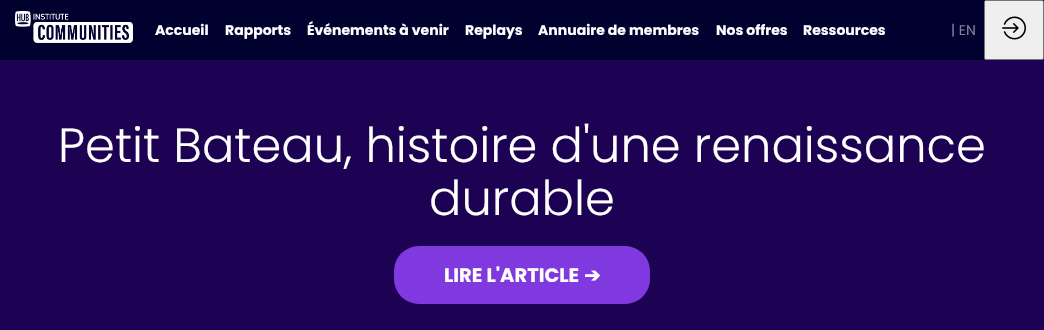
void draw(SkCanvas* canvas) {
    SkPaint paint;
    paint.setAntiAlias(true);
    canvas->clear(0xFF010130);
    canvas->drawImageRect(SkImages::DeferredFromEncodedData(SkData::MakeFromFileName("img1.png")), SkRect::MakeXYWH(15, 11, 118, 32), SkSamplingOptions());
    SkFont font1(fontMgr->matchFamilyStyle("Poppins", SkFontStyle::Bold()), 14);
    font1.setSubpixel(true);
    paint.setColor(0xFFFFFFFF);
    canvas->drawString("Accueil", 155, 35, font1, paint);
    canvas->drawString("Rapports", 225, 35, font1, paint);
    canvas->drawString("Événements à venir", 307, 35, font1, paint);
    canvas->drawString("Replays", 465, 35, font1, paint);
    canvas->drawString("Annuaire de membres", 538, 35, font1, paint);
    canvas->drawString("Nos offres", 716, 35, font1, paint);
    canvas->drawString("Ressources", 803, 35, font1, paint);
    SkFont font2(fontMgr->matchFamilyStyle("Poppins", SkFontStyle::Normal()), 14);
    font2.setSubpixel(true);
    paint.setColor(0xFF808098);
    canvas->drawString("| EN", 951, 35, font2, paint);
    paint.setColor(0xFFEFEFEF);
    canvas->drawRoundRect(SkRect::MakeXYWH(984.5f, 0.5f, 59, 59), 1.5f, 1.5f, paint);
    paint.setStyle(SkPaint::kStroke_Style);
    paint.setStrokeWidth(1);
    paint.setColor(0xFF767676);
    canvas->drawRoundRect(SkRect::MakeXYWH(984.5f, 0.5f, 59, 59), 1.5f, 1.5f, paint);
    canvas->drawImageRect(SkImages::DeferredFromEncodedData(SkData::MakeFromFileName("img2.png")), SkRect::MakeXYWH(1002, 16, 24, 24), SkSamplingOptions());
    paint.setStyle(SkPaint::kFill_Style);
    paint.setColor(0xFF1D0254);
    canvas->drawRect(SkRect::MakeXYWH(0, 60, 1044, 270), paint);
    SkFont font3(fontMgr->matchFamilyStyle("Poppins", SkFontStyle(300, SkFontStyle::kNormal_Width, SkFontStyle::kUpright_Slant)), 48);
    font3.setSubpixel(true);
    paint.setColor(0xFFFFFFFF);
    canvas->drawString("Petit Bateau, histoire d'une renaissance", 58, 162, font3, paint);
    canvas->drawString("durable", 429, 215, font3, paint);
    paint.setColor(0xFF8039DF);
    canvas->drawRoundRect(SkRect::MakeXYWH(394, 246, 256, 58), 25, 25, paint);
    SkFont font4(fontMgr->matchFamilyStyle("Poppins", SkFontStyle::Bold()), 19.5f);
    font4.setSubpixel(true);
    paint.setColor(0xFFFFFFFF);
    canvas->drawString("LIRE L'ARTICLE", 444, 282, font4, paint);
    SkFont font5(fontMgr->matchFamilyStyle("DejaVu Sans", SkFontStyle::Bold()), 19.5f);
    font5.setSubpixel(true);
    canvas->drawString("➔", 584, 282, font5, paint);
}
